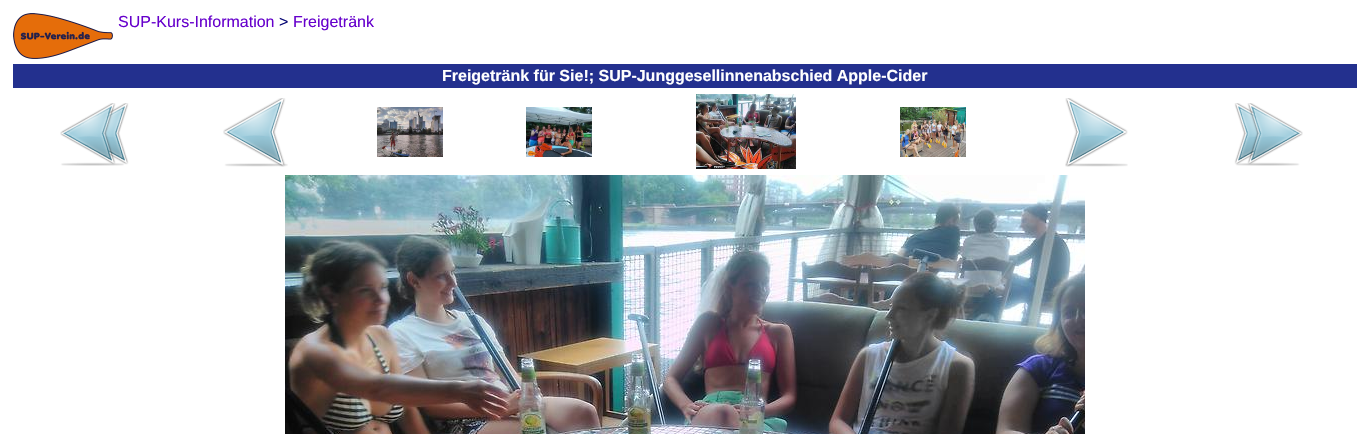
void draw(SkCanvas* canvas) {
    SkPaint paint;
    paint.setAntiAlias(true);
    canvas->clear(0xFFFFFFFF);
    canvas->drawImageRect(SkImages::DeferredFromEncodedData(SkData::MakeFromFileName("img1.png")), SkRect::MakeXYWH(13, 13, 100, 46), SkSamplingOptions());
    SkFont font1(fontMgr->matchFamilyStyle("Liberation Sans", SkFontStyle::Normal()), 16);
    font1.setSubpixel(true);
    paint.setColor(0xFF6600CC);
    canvas->drawString("SUP-Kurs-Information", 118, 27, font1, paint);
    paint.setColor(0xFF080875);
    canvas->drawString(">", 279, 27, font1, paint);
    paint.setColor(0xFF6600CC);
    canvas->drawString("Freigetränk", 293, 27, font1, paint);
    paint.setColor(0xFF23308E);
    canvas->drawRect(SkRect::MakeXYWH(13, 64, 1344, 24), paint);
    SkFont font2(fontMgr->matchFamilyStyle("Liberation Sans", SkFontStyle::Bold()), 16);
    font2.setSubpixel(true);
    paint.setColor(0xFFFFFFFF);
    canvas->drawString("Freigetränk für Sie!; SUP-Junggesellinnenabschied Apple-Cider", 442, 81, font2, paint);
    canvas->drawImageRect(SkImages::DeferredFromEncodedData(SkData::MakeFromFileName("img2.png")), SkRect::MakeXYWH(60, 103, 69, 63), SkSamplingOptions());
    canvas->drawImageRect(SkImages::DeferredFromEncodedData(SkData::MakeFromFileName("img3.png")), SkRect::MakeXYWH(223, 98, 65, 69), SkSamplingOptions());
    canvas->drawImageRect(SkImages::DeferredFromEncodedData(SkData::MakeFromFileName("img4.png")), SkRect::MakeXYWH(377, 107, 66, 50), SkSamplingOptions());
    canvas->drawImageRect(SkImages::DeferredFromEncodedData(SkData::MakeFromFileName("img5.png")), SkRect::MakeXYWH(526, 107, 66, 50), SkSamplingOptions());
    canvas->drawImageRect(SkImages::DeferredFromEncodedData(SkData::MakeFromFileName("img6.png")), SkRect::MakeXYWH(696, 94, 100, 75), SkSamplingOptions());
    canvas->drawImageRect(SkImages::DeferredFromEncodedData(SkData::MakeFromFileName("img7.png")), SkRect::MakeXYWH(900, 107, 66, 50), SkSamplingOptions());
    canvas->drawImageRect(SkImages::DeferredFromEncodedData(SkData::MakeFromFileName("img8.png")), SkRect::MakeXYWH(1065, 98, 63, 69), SkSamplingOptions());
    canvas->drawImageRect(SkImages::DeferredFromEncodedData(SkData::MakeFromFileName("img9.png")), SkRect::MakeXYWH(1234, 103, 69, 63), SkSamplingOptions());
    canvas->drawImageRect(SkImages::DeferredFromEncodedData(SkData::MakeFromFileName("img10.png")), SkRect::MakeXYWH(285, 175, 800, 259), SkSamplingOptions());
}
